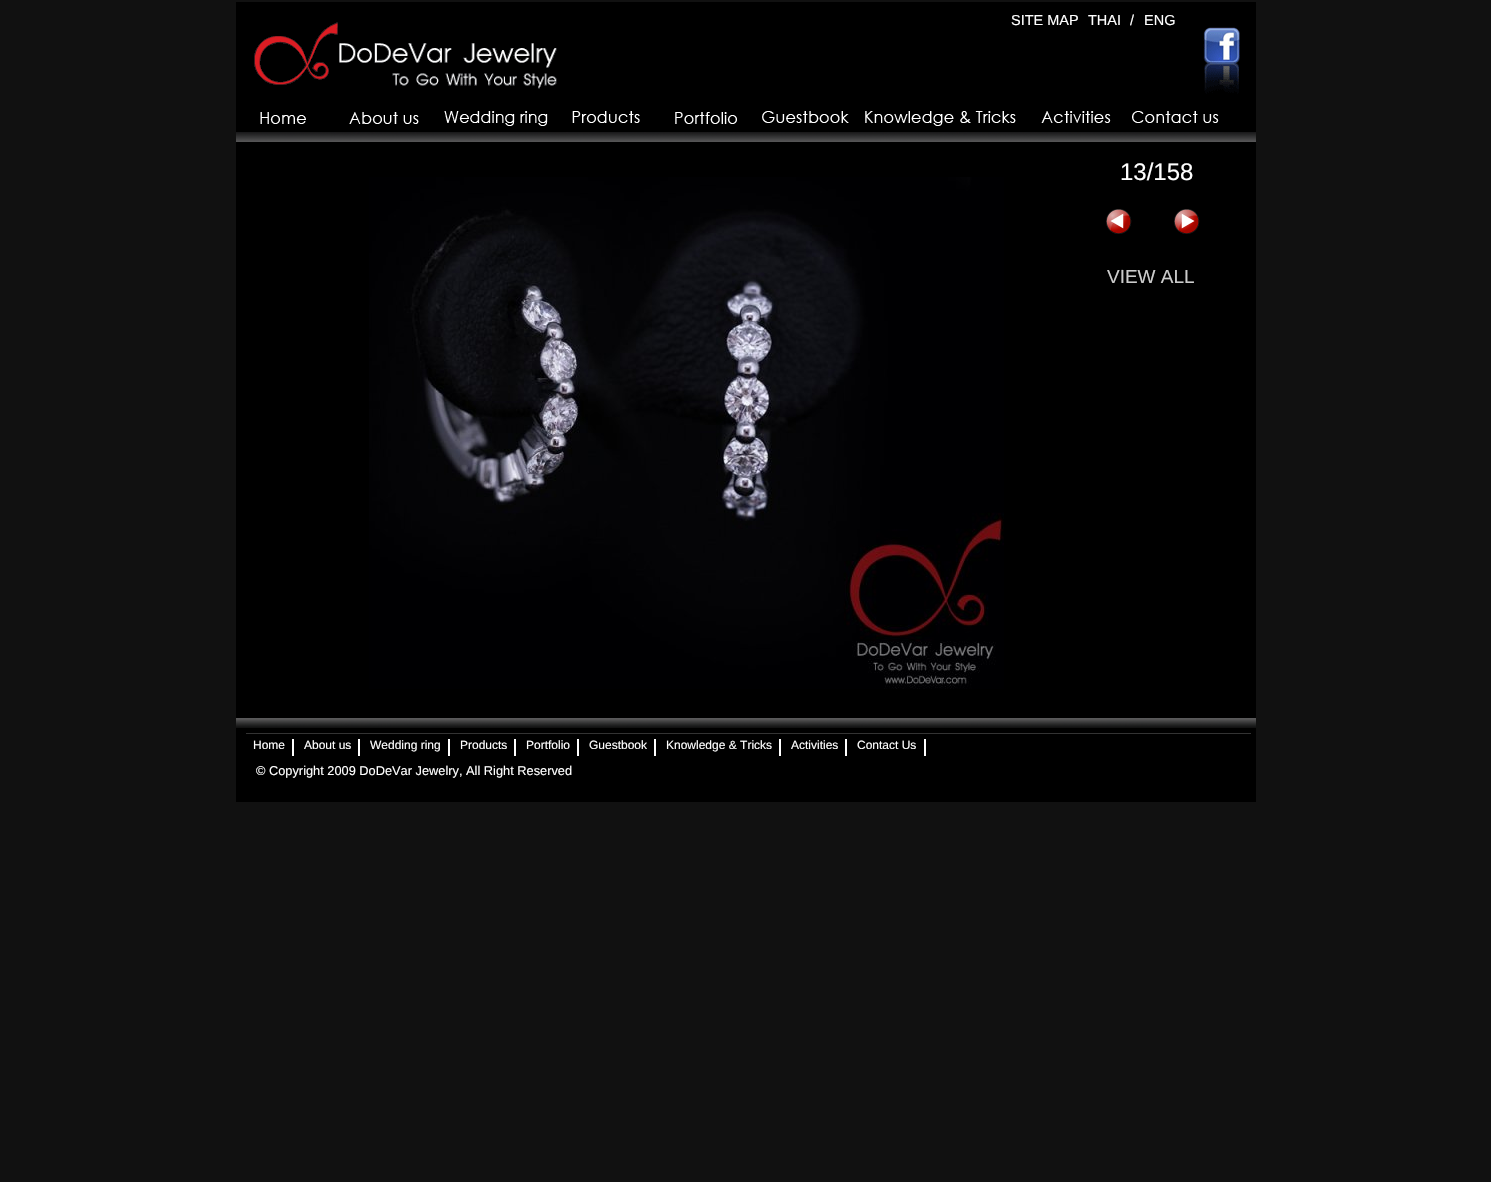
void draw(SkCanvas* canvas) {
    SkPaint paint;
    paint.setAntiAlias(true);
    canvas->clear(0xFF111111);
    paint.setColor(0xFF000000);
    canvas->drawRect(SkRect::MakeXYWH(236, 2, 1020, 800), paint);
    SkFont font1(fontMgr->matchFamilyStyle("Liberation Sans", SkFontStyle::Normal()), 14.5f);
    font1.setSubpixel(true);
    paint.setColor(0xFFFFFFFF);
    canvas->drawString("SITE MAP", 1011, 25, font1, paint);
    canvas->drawString("THAI", 1088, 25, font1, paint);
    canvas->drawString("/", 1130, 25, font1, paint);
    canvas->drawString("ENG", 1144, 25, font1, paint);
    canvas->drawImageRect(SkImages::DeferredFromEncodedData(SkData::MakeFromFileName("img1.png")), SkRect::MakeXYWH(1203, 27, 37, 67), SkSamplingOptions());
    canvas->drawImageRect(SkImages::DeferredFromEncodedData(SkData::MakeFromFileName("img2.png")), SkRect::MakeXYWH(254, 22, 303, 67), SkSamplingOptions());
    canvas->drawImageRect(SkImages::DeferredFromEncodedData(SkData::MakeFromFileName("img3.png")), SkRect::MakeXYWH(260, 112, 46, 12), SkSamplingOptions());
    canvas->drawImageRect(SkImages::DeferredFromEncodedData(SkData::MakeFromFileName("img4.png")), SkRect::MakeXYWH(349, 112, 70, 12), SkSamplingOptions());
    canvas->drawImageRect(SkImages::DeferredFromEncodedData(SkData::MakeFromFileName("img5.png")), SkRect::MakeXYWH(444, 111, 104, 15), SkSamplingOptions());
    canvas->drawImageRect(SkImages::DeferredFromEncodedData(SkData::MakeFromFileName("img6.png")), SkRect::MakeXYWH(572, 111, 68, 12), SkSamplingOptions());
    canvas->drawImageRect(SkImages::DeferredFromEncodedData(SkData::MakeFromFileName("img7.png")), SkRect::MakeXYWH(675, 112, 62, 12), SkSamplingOptions());
    canvas->drawImageRect(SkImages::DeferredFromEncodedData(SkData::MakeFromFileName("img8.png")), SkRect::MakeXYWH(762, 111, 87, 12), SkSamplingOptions());
    canvas->drawImageRect(SkImages::DeferredFromEncodedData(SkData::MakeFromFileName("img9.png")), SkRect::MakeXYWH(865, 111, 151, 15), SkSamplingOptions());
    canvas->drawImageRect(SkImages::DeferredFromEncodedData(SkData::MakeFromFileName("img10.png")), SkRect::MakeXYWH(1041, 111, 70, 12), SkSamplingOptions());
    canvas->drawImageRect(SkImages::DeferredFromEncodedData(SkData::MakeFromFileName("img11.png")), SkRect::MakeXYWH(1132, 111, 87, 12), SkSamplingOptions());
    canvas->drawImageRect(SkImages::DeferredFromEncodedData(SkData::MakeFromFileName("img12.png")), SkRect::MakeXYWH(236, 132, 1020, 10), SkSamplingOptions());
    canvas->drawImageRect(SkImages::DeferredFromEncodedData(SkData::MakeFromFileName("img13.png")), SkRect::MakeXYWH(369, 177, 635, 512), SkSamplingOptions());
    SkFont font2(fontMgr->matchFamilyStyle("Liberation Sans", SkFontStyle::Normal()), 24);
    font2.setSubpixel(true);
    canvas->drawString("13/158", 1120, 180, font2, paint);
    canvas->drawImageRect(SkImages::DeferredFromEncodedData(SkData::MakeFromFileName("img14.png")), SkRect::MakeXYWH(1106, 209, 26, 25), SkSamplingOptions());
    canvas->drawImageRect(SkImages::DeferredFromEncodedData(SkData::MakeFromFileName("img15.png")), SkRect::MakeXYWH(1174, 209, 26, 25), SkSamplingOptions());
    SkFont font3(fontMgr->matchFamilyStyle("Liberation Sans", SkFontStyle::Normal()), 19);
    font3.setSubpixel(true);
    paint.setColor(0xFFCCCCCC);
    canvas->drawString("VIEW ALL", 1107, 283, font3, paint);
    canvas->drawImageRect(SkImages::DeferredFromEncodedData(SkData::MakeFromFileName("img16.png")), SkRect::MakeXYWH(236, 718, 1020, 10), SkSamplingOptions());
    paint.setColor(0xFF333333);
    canvas->drawRect(SkRect::MakeXYWH(246, 733, 1005, 1), paint);
    paint.setColor(0xFFFFFFFF);
    canvas->drawRect(SkRect::MakeXYWH(292, 739, 2, 17), paint);
    SkFont font4(fontMgr->matchFamilyStyle("Liberation Sans", SkFontStyle::Normal()), 12);
    font4.setSubpixel(true);
    canvas->drawString("Home", 253, 749, font4, paint);
    canvas->drawRect(SkRect::MakeXYWH(358, 739, 2, 17), paint);
    canvas->drawString("About us", 304, 749, font4, paint);
    canvas->drawRect(SkRect::MakeXYWH(448, 739, 2, 17), paint);
    canvas->drawString("Wedding ring", 370, 749, font4, paint);
    canvas->drawRect(SkRect::MakeXYWH(514, 739, 2, 17), paint);
    canvas->drawString("Products", 460, 749, font4, paint);
    canvas->drawRect(SkRect::MakeXYWH(577, 739, 2, 17), paint);
    canvas->drawString("Portfolio", 526, 749, font4, paint);
    canvas->drawRect(SkRect::MakeXYWH(654, 739, 2, 17), paint);
    canvas->drawString("Guestbook", 589, 749, font4, paint);
    canvas->drawRect(SkRect::MakeXYWH(779, 739, 2, 17), paint);
    canvas->drawString("Knowledge & Tricks", 666, 749, font4, paint);
    canvas->drawRect(SkRect::MakeXYWH(845, 739, 2, 17), paint);
    canvas->drawString("Activities", 791, 749, font4, paint);
    canvas->drawRect(SkRect::MakeXYWH(924, 739, 2, 17), paint);
    canvas->drawString("Contact Us", 857, 749, font4, paint);
    SkFont font5(fontMgr->matchFamilyStyle("Liberation Sans", SkFontStyle::Normal()), 12.8f);
    font5.setSubpixel(true);
    canvas->drawString("© Copyright 2009 DoDeVar Jewelry, All Right Reserved", 256, 775, font5, paint);
}
